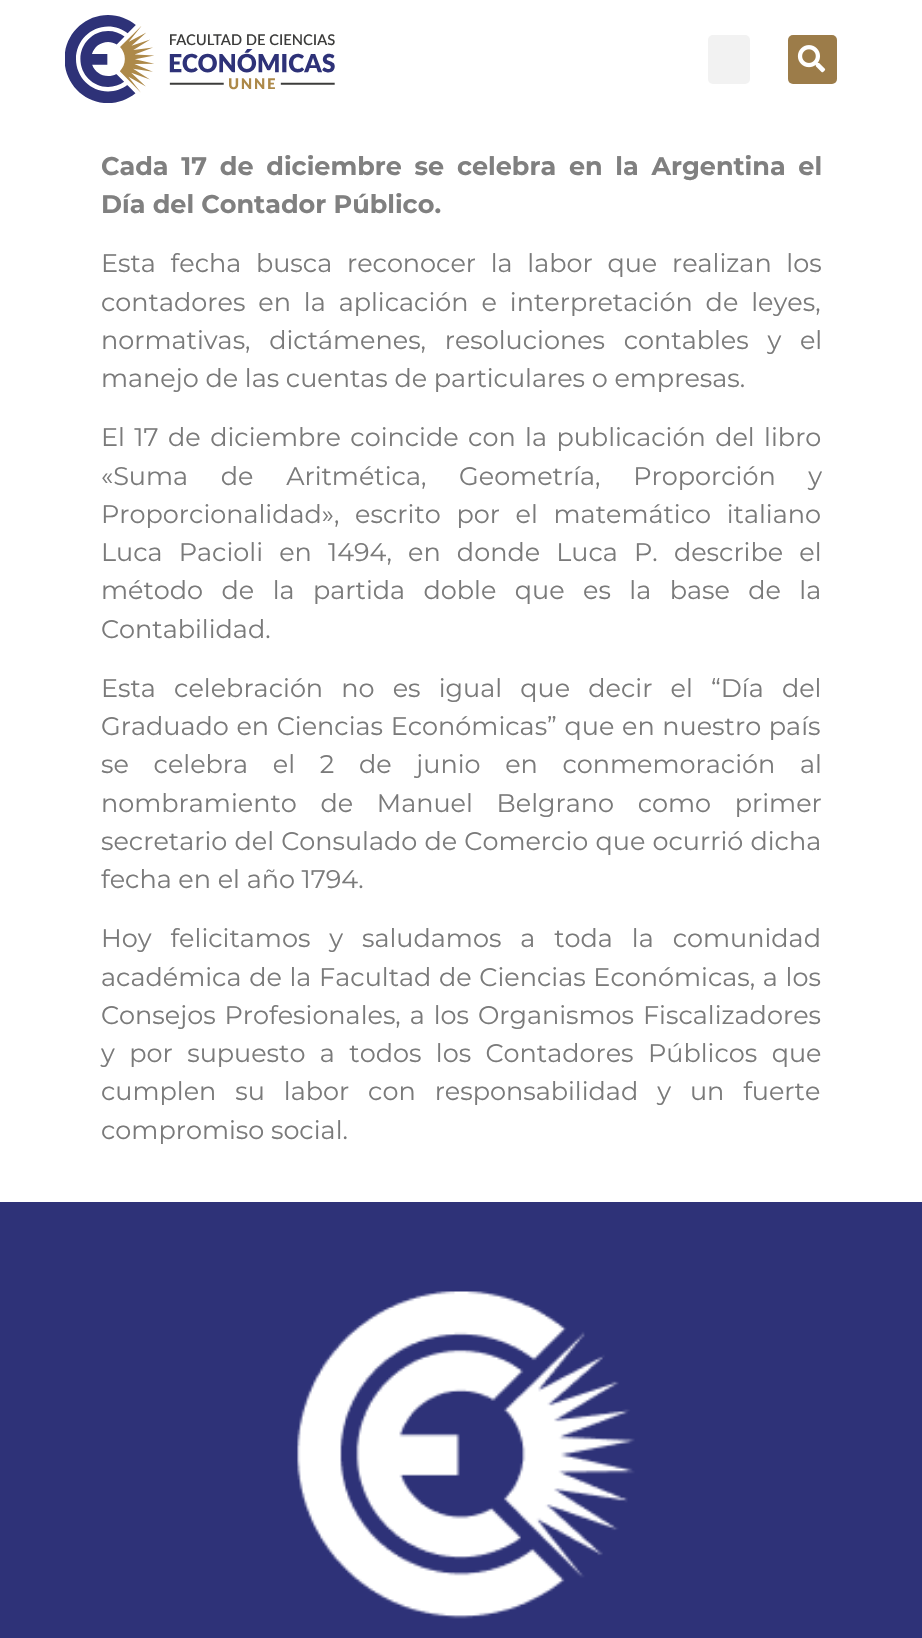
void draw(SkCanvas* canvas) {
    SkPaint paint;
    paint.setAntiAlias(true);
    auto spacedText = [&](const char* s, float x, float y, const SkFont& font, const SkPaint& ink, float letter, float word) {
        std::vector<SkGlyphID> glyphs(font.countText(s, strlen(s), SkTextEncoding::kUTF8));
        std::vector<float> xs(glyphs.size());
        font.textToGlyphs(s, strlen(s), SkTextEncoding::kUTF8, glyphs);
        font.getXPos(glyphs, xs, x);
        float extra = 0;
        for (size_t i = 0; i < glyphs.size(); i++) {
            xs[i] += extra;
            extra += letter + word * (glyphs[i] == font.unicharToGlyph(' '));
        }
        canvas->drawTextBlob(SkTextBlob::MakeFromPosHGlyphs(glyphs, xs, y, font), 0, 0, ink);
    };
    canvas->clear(0xFFFFFFFF);
    canvas->drawImageRect(SkImages::DeferredFromEncodedData(SkData::MakeFromFileName("img1.png")), SkRect::MakeXYWH(65, 15, 270, 88), SkSamplingOptions());
    paint.setColor(0xFFF2F2F2);
    canvas->drawRoundRect(SkRect::MakeXYWH(708, 35, 42, 49), 5, 5, paint);
    paint.setColor(0xFF9C7C49);
    canvas->drawRoundRect(SkRect::MakeXYWH(788, 35, 49, 49), 5, 5, paint);
    canvas->drawImageRect(SkImages::DeferredFromEncodedData(SkData::MakeFromFileName("img2.png")), SkRect::MakeXYWH(797, 45, 29, 28), SkSamplingOptions());
    SkFont font1(fontMgr->matchFamilyStyle("Montserrat", SkFontStyle::Bold()), 25.5f);
    font1.setSubpixel(true);
    paint.setColor(0xFF808080);
    spacedText("Cada 17 de diciembre se celebra en la Argentina el", 101, 175, font1, paint, 0, 5.5f);
    canvas->drawString("Día del Contador Público.", 101, 213, font1, paint);
    SkFont font2(fontMgr->matchFamilyStyle("Montserrat", SkFontStyle::Normal()), 25.5f);
    font2.setSubpixel(true);
    paint.setColor(0xFF7A7A7A);
    spacedText("Esta fecha busca reconocer la labor que realizan los", 101, 272, font2, paint, 0, 8);
    spacedText("contadores en la aplicación e interpretación de leyes,", 101, 311, font2, paint, 0, 6.25f);
    spacedText("normativas, dictámenes, resoluciones contables y el", 101, 349, font2, paint, 0, 12);
    canvas->drawString("manejo de las cuentas de particulares o empresas.", 101, 387, font2, paint);
    spacedText("El 17 de diciembre coincide con la publicación del libro", 101, 446, font2, paint, 0, 2.75f);
    spacedText("«Suma de Aritmética, Geometría, Proporción y", 101, 485, font2, paint, 0, 26);
    spacedText("Proporcionalidad», escrito por el matemático italiano", 101, 523, font2, paint, 0, 9);
    spacedText("Luca Pacioli en 1494, en donde Luca P. describe el", 101, 561, font2, paint, 0, 9.5f);
    spacedText("método de la partida doble que es la base de la", 101, 599, font2, paint, 0, 11.75f);
    canvas->drawString("Contabilidad.", 101, 638, font2, paint);
    spacedText("Esta celebración no es igual que decir el “Día del", 101, 697, font2, paint, 0, 11.5f);
    spacedText("Graduado en Ciencias Económicas” que en nuestro país", 101, 735, font2, paint, 0, 1);
    spacedText("se celebra el 2 de junio en conmemoración al", 101, 773, font2, paint, 0, 18);
    spacedText("nombramiento de Manuel Belgrano como primer", 101, 812, font2, paint, 0, 17);
    spacedText("secretario del Consulado de Comercio que ocurrió dicha", 101, 850, font2, paint, 0, 0.5f);
    canvas->drawString("fecha en el año 1794.", 101, 888, font2, paint);
    spacedText("Hoy felicitamos y saludamos a toda la comunidad", 101, 947, font2, paint, 0, 12.25f);
    spacedText("académica de la Facultad de Ciencias Económicas, a los", 101, 986, font2, paint, 0, 1);
    spacedText("Consejos Profesionales, a los Organismos Fiscalizadores", 101, 1024, font2, paint, 0, 2.25f);
    spacedText("y por supuesto a todos los Contadores Públicos que", 101, 1062, font2, paint, 0, 7.75f);
    spacedText("cumplen su labor con responsabilidad y un fuerte", 101, 1100, font2, paint, 0, 12.25f);
    canvas->drawString("compromiso social.", 101, 1139, font2, paint);
    paint.setColor(0xFF2E3278);
    canvas->drawRect(SkRect::MakeXYWH(0, 1202, 922, 436), paint);
    canvas->drawImageRect(SkImages::DeferredFromEncodedData(SkData::MakeFromFileName("img3.png")), SkRect::MakeXYWH(297, 1291, 338, 328), SkSamplingOptions());
}
